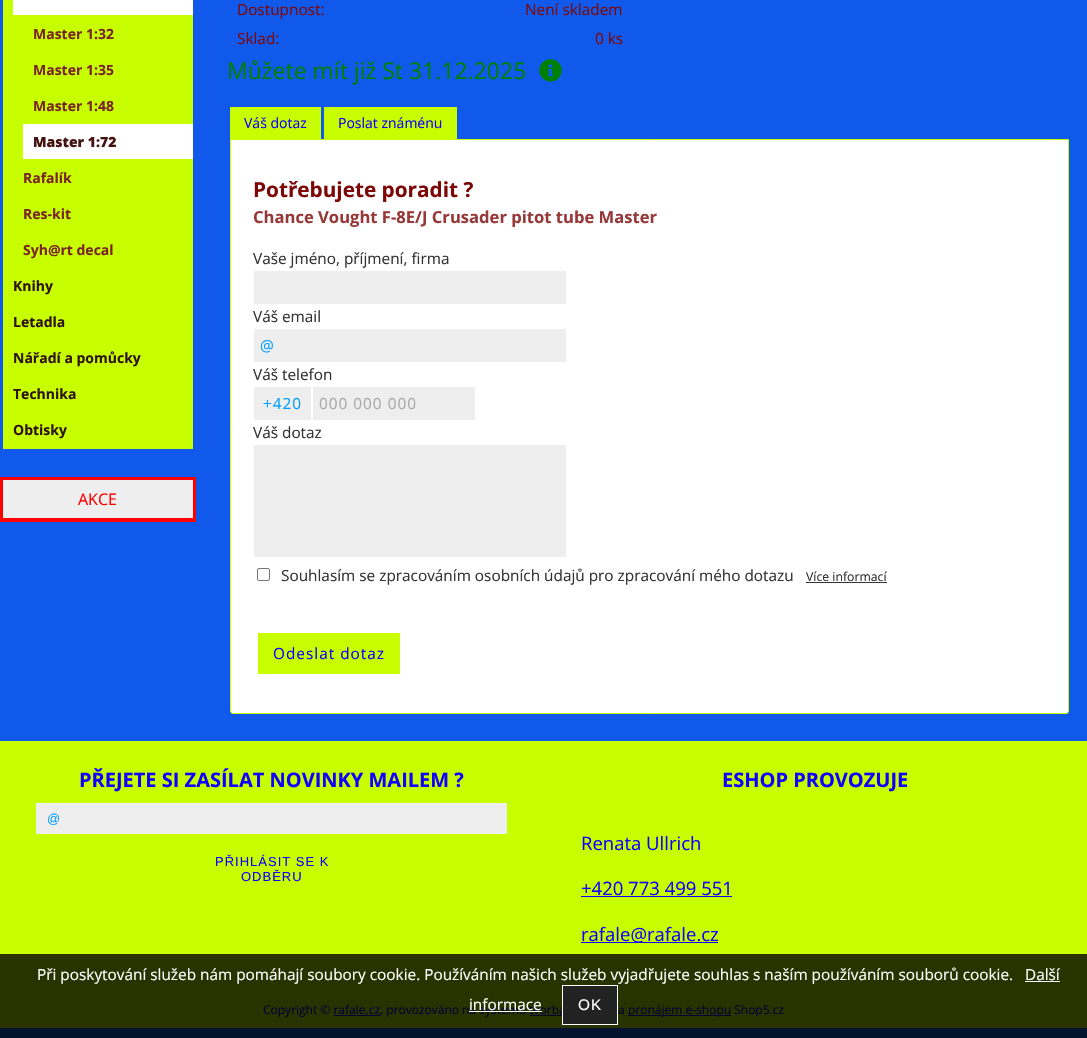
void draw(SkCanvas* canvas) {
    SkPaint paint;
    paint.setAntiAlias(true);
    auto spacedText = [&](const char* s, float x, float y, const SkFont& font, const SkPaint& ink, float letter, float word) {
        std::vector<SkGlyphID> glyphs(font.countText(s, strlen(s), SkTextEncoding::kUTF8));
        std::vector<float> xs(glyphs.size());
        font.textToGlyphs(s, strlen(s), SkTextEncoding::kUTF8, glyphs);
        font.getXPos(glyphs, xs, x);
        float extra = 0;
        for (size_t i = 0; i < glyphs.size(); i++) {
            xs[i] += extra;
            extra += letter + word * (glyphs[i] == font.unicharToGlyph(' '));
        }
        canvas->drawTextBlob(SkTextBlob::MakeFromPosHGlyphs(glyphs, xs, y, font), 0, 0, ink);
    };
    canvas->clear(0xFF1059EA);
    paint.setColor(0xFF03122F);
    canvas->drawRect(SkRect::MakeXYWH(0, 1028, 1087, 10), paint);
    paint.setColor(0xFFC8FF00);
    canvas->drawRect(SkRect::MakeXYWH(3, 0, 190, 449), paint);
    paint.setColor(0xFFFFFFFF);
    canvas->drawRect(SkRect::MakeXYWH(13, 0, 180, 15), paint);
    SkFont font1(fontMgr->matchFamilyStyle("Open Sans", SkFontStyle::Bold()), 14);
    font1.setSubpixel(true);
    paint.setColor(0xFF792525);
    canvas->drawString("Master 1:32", 33, 39, font1, paint);
    canvas->drawString("Master 1:35", 33, 75, font1, paint);
    canvas->drawString("Master 1:48", 33, 111, font1, paint);
    paint.setColor(0xFFFFFFFF);
    canvas->drawRect(SkRect::MakeXYWH(23, 124, 170, 35), paint);
    SkFont font2(fontMgr->matchFamilyStyle("Open Sans", SkFontStyle(800, SkFontStyle::kNormal_Width, SkFontStyle::kUpright_Slant)), 14);
    font2.setSubpixel(true);
    paint.setColor(0xFF461111);
    canvas->drawString("Master 1:72", 33, 147, font2, paint);
    paint.setColor(0xFF792525);
    canvas->drawString("Rafalík", 23, 183, font1, paint);
    canvas->drawString("Res-kit", 23, 219, font1, paint);
    canvas->drawString("Syh@rt decal", 23, 255, font1, paint);
    paint.setColor(0xFF2F1313);
    canvas->drawString("Knihy", 13, 291, font1, paint);
    canvas->drawString("Letadla", 13, 327, font1, paint);
    canvas->drawString("Nářadí a pomůcky", 13, 363, font1, paint);
    canvas->drawString("Technika", 13, 399, font1, paint);
    canvas->drawString("Obtisky", 13, 435, font1, paint);
    paint.setColor(0xFFFF0000);
    canvas->drawRect(SkRect::MakeXYWH(0, 477, 196, 45), paint);
    paint.setColor(0xFFEEEEEE);
    canvas->drawRect(SkRect::MakeXYWH(3, 480, 190, 38), paint);
    SkFont font3(fontMgr->matchFamilyStyle("Open Sans", SkFontStyle::Normal()), 16);
    font3.setSubpixel(true);
    paint.setColor(0xFFFF0000);
    canvas->drawString("AKCE", 78, 505, font3, paint);
    SkFont font4(fontMgr->matchFamilyStyle("Open Sans", SkFontStyle::Normal()), 15.35f);
    font4.setSubpixel(true);
    paint.setColor(0xFF7D0707);
    canvas->drawString("Dostupnost:", 237, 15, font4, paint);
    canvas->drawString("Není skladem", 525, 15, font4, paint);
    canvas->drawString("Sklad:", 237, 44, font4, paint);
    canvas->drawString("0 ks", 595, 44, font4, paint);
    SkFont font5(fontMgr->matchFamilyStyle("Open Sans", SkFontStyle::Normal()), 23);
    font5.setSubpixel(true);
    paint.setColor(0xFF008000);
    canvas->drawString("Můžete mít již St 31.12.2025", 227, 79, font5, paint);
    canvas->drawImageRect(SkImages::DeferredFromEncodedData(SkData::MakeFromFileName("img1.png")), SkRect::MakeXYWH(539, 59, 23, 23), SkSamplingOptions());
    paint.setColor(0xFFC8FF00);
    canvas->drawRect(SkRect::MakeXYWH(230, 107, 91, 32), paint);
    SkFont font6(fontMgr->matchFamilyStyle("Open Sans", SkFontStyle::Normal()), 14);
    font6.setSubpixel(true);
    paint.setColor(0xFF1100FF);
    canvas->drawString("Váš dotaz", 244, 128, font6, paint);
    paint.setColor(0xFFC8FF00);
    canvas->drawRect(SkRect::MakeXYWH(324, 107, 133, 32), paint);
    paint.setColor(0xFF1100FF);
    canvas->drawString("Poslat známénu", 338, 128, font6, paint);
    paint.setColor(0xFFFFFFFF);
    canvas->drawPath(SkPathBuilder().moveTo(230.5f, 139.5f).lineTo(1068.5f, 139.5f).lineTo(1068.5f, 711).cubicTo(1068.5f, 712.5f, 1067.5f, 713.5f, 1066, 713.5f).lineTo(233, 713.5f).cubicTo(231.5f, 713.5f, 230.5f, 712.5f, 230.5f, 711).close().detach(), paint);
    paint.setStyle(SkPaint::kStroke_Style);
    paint.setStrokeWidth(1);
    paint.setColor(0xFFC8FF00);
    canvas->drawPath(SkPathBuilder().moveTo(230.5f, 139.5f).lineTo(1068.5f, 139.5f).lineTo(1068.5f, 711).cubicTo(1068.5f, 712.5f, 1067.5f, 713.5f, 1066, 713.5f).lineTo(233, 713.5f).cubicTo(231.5f, 713.5f, 230.5f, 712.5f, 230.5f, 711).close().detach(), paint);
    SkFont font7(fontMgr->matchFamilyStyle("Open Sans", SkFontStyle::Bold()), 20.75f);
    font7.setSubpixel(true);
    paint.setStyle(SkPaint::kFill_Style);
    paint.setColor(0xFF7D0707);
    canvas->drawString("Potřebujete poradit ?", 253, 197, font7, paint);
    SkFont font8(fontMgr->matchFamilyStyle("Open Sans", SkFontStyle::Bold()), 16.6f);
    font8.setSubpixel(true);
    paint.setColor(0xFF973939);
    canvas->drawString("Chance Vought F-8E/J Crusader pitot tube Master", 253, 223, font8, paint);
    paint.setColor(0xFF333333);
    canvas->drawString("Vaše jméno, příjmení, firma", 253, 264, font4, paint);
    paint.setColor(0xFFEEEEEE);
    canvas->drawRect(SkRect::MakeXYWH(254, 271, 312, 33), paint);
    paint.setColor(0xFF333333);
    canvas->drawString("Váš email", 253, 322, font4, paint);
    paint.setColor(0xFFEEEEEE);
    canvas->drawRect(SkRect::MakeXYWH(254, 329, 312, 33), paint);
    paint.setColor(0xFF009DFF);
    spacedText("@", 260, 351, font4, paint, 1, 0);
    paint.setColor(0xFF333333);
    canvas->drawString("Váš telefon", 253, 380, font4, paint);
    paint.setColor(0xFFEEEEEE);
    canvas->drawRect(SkRect::MakeXYWH(254, 387, 57, 33), paint);
    paint.setColor(0xFF009DFF);
    spacedText("+420", 263, 409, font4, paint, 1, 0);
    paint.setColor(0xFFEEEEEE);
    canvas->drawRect(SkRect::MakeXYWH(313, 387, 162, 33), paint);
    paint.setColor(0xFFAAAAAA);
    spacedText("000 000 000", 319, 409, font4, paint, 1, 0);
    paint.setColor(0xFF333333);
    canvas->drawString("Váš dotaz", 253, 438, font4, paint);
    paint.setColor(0xFFEEEEEE);
    canvas->drawRect(SkRect::MakeXYWH(254, 445, 312, 112), paint);
    paint.setStyle(SkPaint::kStroke_Style);
    paint.setColor(0xFF767676);
    canvas->drawRoundRect(SkRect::MakeXYWH(257.5f, 568.5f, 12, 12), 1.5f, 1.5f, paint);
    paint.setStyle(SkPaint::kFill_Style);
    paint.setColor(0xFF333333);
    canvas->drawString("Souhlasím se zpracováním osobních údajů pro zpracování mého dotazu", 281, 581, font4, paint);
    SkFont font9(fontMgr->matchFamilyStyle("Open Sans", SkFontStyle::Normal()), 12.25f);
    font9.setSubpixel(true);
    canvas->drawString("Více informací", 806, 581, font9, paint);
    canvas->drawRect(SkRect::MakeXYWH(806, 582, 81, 1), paint);
    paint.setColor(0xFFC8FF00);
    canvas->drawRect(SkRect::MakeXYWH(258, 633, 142, 41), paint);
    paint.setColor(0xFF1100FF);
    spacedText("Odeslat dotaz", 273, 659, font4, paint, 1, 0);
    paint.setColor(0xFFC8FF00);
    canvas->drawRect(SkRect::MakeXYWH(0, 741, 1087, 213), paint);
    paint.setColor(0xFF283300);
    canvas->drawRect(SkRect::MakeXYWH(0, 954, 1087, 74), paint);
    SkFont font10(fontMgr->matchFamilyStyle("Open Sans", SkFontStyle::Bold()), 20);
    font10.setSubpixel(true);
    paint.setColor(0xFF1100FF);
    canvas->drawString("PŘEJETE SI ZASÍLAT NOVINKY MAILEM ?", 79, 787, font10, paint);
    paint.setColor(0xFFEEEEEE);
    canvas->drawRect(SkRect::MakeXYWH(36, 803, 471, 31), paint);
    SkFont font11(fontMgr->matchFamilyStyle("Liberation Sans", SkFontStyle::Normal()), 13);
    font11.setSubpixel(true);
    paint.setColor(0xFF009DFF);
    spacedText("@", 47, 823, font11, paint, 1, 0);
    paint.setColor(0xFF1100FF);
    spacedText("PŘIHLÁSIT SE K", 215, 866, font11, paint, 1, 0);
    spacedText("ODBĚRU", 241, 881, font11, paint, 1, 0);
    canvas->drawString("ESHOP PROVOZUJE", 722, 787, font10, paint);
    SkFont font12(fontMgr->matchFamilyStyle("Open Sans", SkFontStyle::Normal()), 18.5f);
    font12.setSubpixel(true);
    canvas->drawString("Renata Ullrich", 581, 850, font12, paint);
    canvas->drawString("+420 773 499 551", 581, 895, font12, paint);
    canvas->drawRect(SkRect::MakeXYWH(581, 896, 151, 1), paint);
    canvas->drawRect(SkRect::MakeXYWH(581, 942, 137, 1), paint);
    canvas->drawString("rafale@rafale.cz", 581, 941, font12, paint);
    SkFont font13(fontMgr->matchFamilyStyle("Open Sans", SkFontStyle::Normal()), 12);
    font13.setSubpixel(true);
    paint.setColor(0xFF030033);
    canvas->drawString("Copyright © rafale.cz, provozováno na systému tvorba", 263, 1014, font13, paint);
    canvas->drawString("a", 618, 1014, font13, paint);
    canvas->drawRect(SkRect::MakeXYWH(530, 1015, 32, 1), paint);
    canvas->drawRect(SkRect::MakeXYWH(628, 1015, 103, 1), paint);
    canvas->drawString("pronájem e-shopu Shop5.cz", 628, 1014, font13, paint);
    canvas->drawRect(SkRect::MakeXYWH(334, 1015, 46, 1), paint);
    paint.setColor(0xFFFFFFFF);
    canvas->drawString("Při poskytování služeb nám pomáhají soubory cookie. Používáním našich služeb vyjadřujete souhlas s naším používáním souborů cookie.", 37, 980, font4, paint);
    canvas->drawString("Další", 1025, 980, font4, paint);
    canvas->drawRect(SkRect::MakeXYWH(1025, 981, 35, 1), paint);
    canvas->drawString("informace", 469, 1010, font4, paint);
    canvas->drawRect(SkRect::MakeXYWH(469, 1011, 73, 1), paint);
    paint.setColor(0xFF222222);
    canvas->drawRect(SkRect::MakeXYWH(562.5f, 985.5f, 55, 39), paint);
    paint.setStyle(SkPaint::kStroke_Style);
    paint.setColor(0xFFFFFFFF);
    canvas->drawRect(SkRect::MakeXYWH(562.5f, 985.5f, 55, 39), paint);
    SkFont font14(fontMgr->matchFamilyStyle("Liberation Sans", SkFontStyle::Normal()), 15.35f);
    font14.setSubpixel(true);
    paint.setStyle(SkPaint::kFill_Style);
    spacedText("OK", 578, 1010, font14, paint, 1, 0);
}
